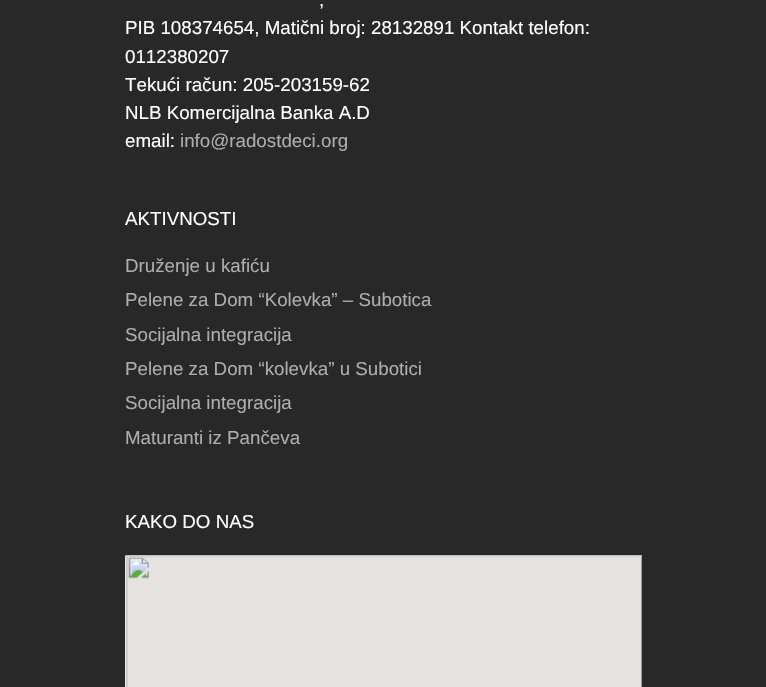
void draw(SkCanvas* canvas) {
    SkPaint paint;
    paint.setAntiAlias(true);
    canvas->clear(0xFF282828);
    SkFont font1(fontMgr->matchFamilyStyle("Liberation Sans", SkFontStyle::Normal()), 18.75f);
    font1.setSubpixel(true);
    paint.setColor(0xFFFFFFFF);
    canvas->drawString(",", 319, 6, font1, paint);
    canvas->drawString("PIB 108374654, Matični broj: 28132891 Kontakt telefon:", 125, 34, font1, paint);
    canvas->drawString("0112380207", 125, 63, font1, paint);
    canvas->drawString("Tekući račun: 205-203159-62", 125, 91, font1, paint);
    canvas->drawString("NLB Komercijalna Banka A.D", 125, 119, font1, paint);
    canvas->drawString("email:", 125, 147, font1, paint);
    paint.setColor(0xFFADADAD);
    canvas->drawString("info@radostdeci.org", 180, 147, font1, paint);
    paint.setColor(0xFFFFFFFF);
    canvas->drawString("AKTIVNOSTI", 125, 225, font1, paint);
    paint.setColor(0xFFADADAD);
    canvas->drawString("Druženje u kafiću", 125, 272, font1, paint);
    canvas->drawString("Pelene za Dom “Kolevka” – Subotica", 125, 306, font1, paint);
    canvas->drawString("Socijalna integracija", 125, 341, font1, paint);
    canvas->drawString("Pelene za Dom “kolevka” u Subotici", 125, 375, font1, paint);
    canvas->drawString("Socijalna integracija", 125, 409, font1, paint);
    canvas->drawString("Maturanti iz Pančeva", 125, 444, font1, paint);
    paint.setColor(0xFFFFFFFF);
    canvas->drawString("KAKO DO NAS", 125, 528, font1, paint);
    canvas->drawImageRect(SkImages::DeferredFromEncodedData(SkData::MakeFromFileName("img1.png")), SkRect::MakeXYWH(125, 555, 517, 132), SkSamplingOptions());
}
